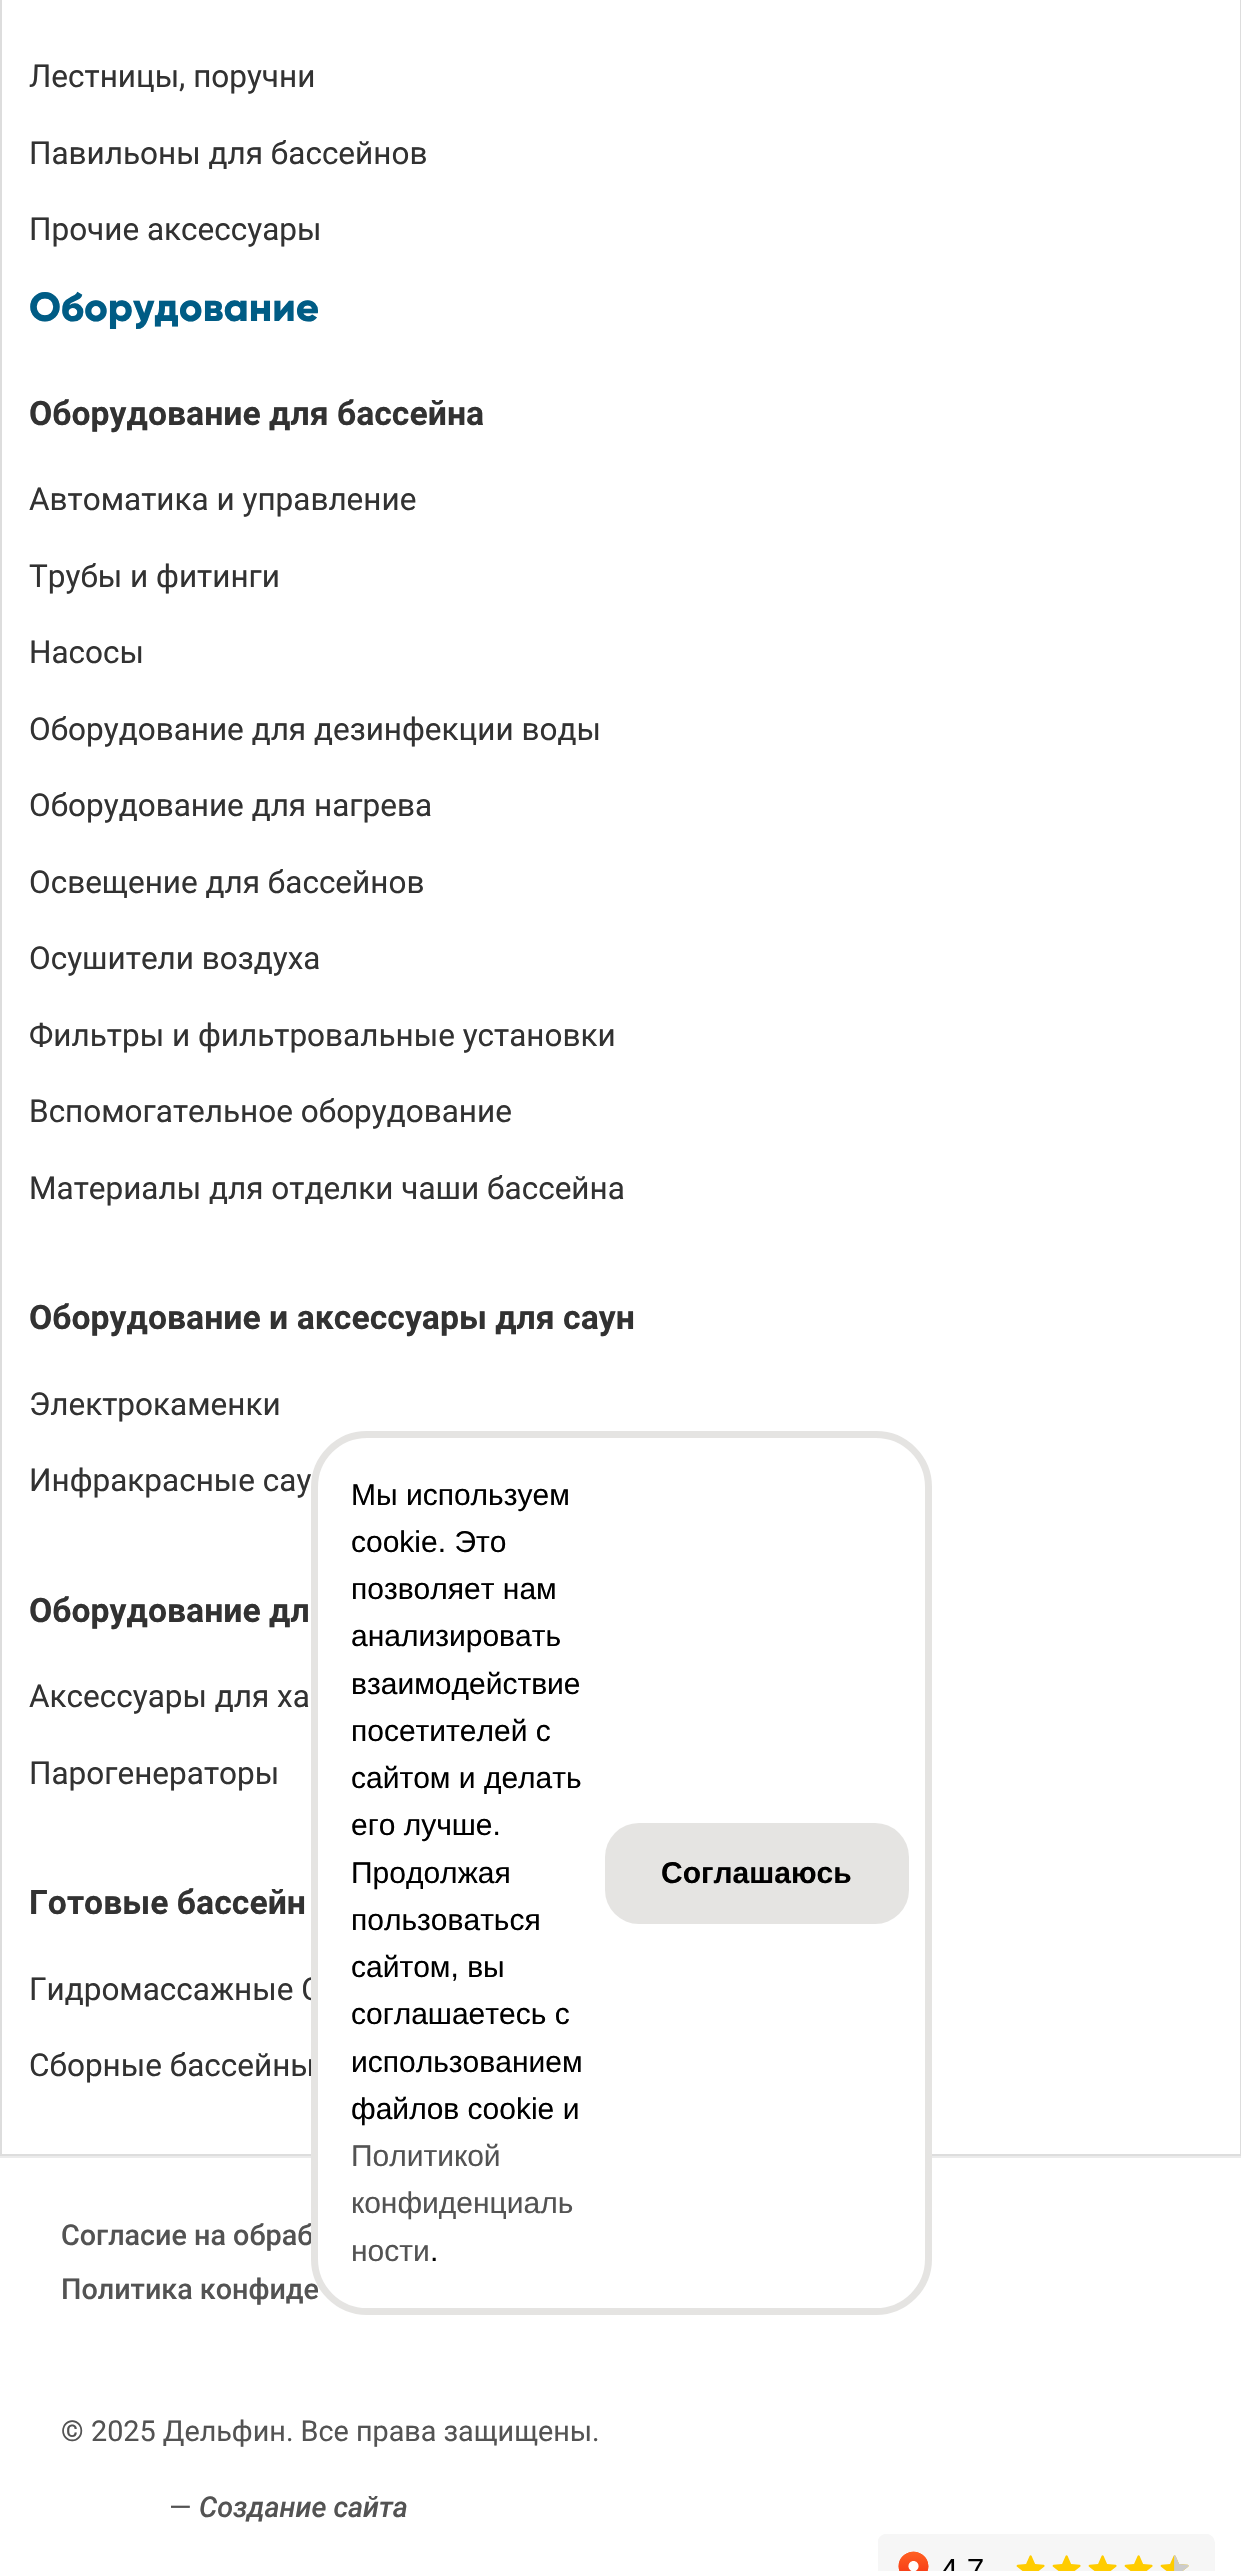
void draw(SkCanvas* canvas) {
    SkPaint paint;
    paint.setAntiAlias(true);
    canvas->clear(0xFFFFFFFF);
    paint.setStyle(SkPaint::kStroke_Style);
    paint.setStrokeWidth(2);
    paint.setColor(0xFFDDDDDD);
    canvas->drawRect(SkRect::MakeXYWH(1, -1, 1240, 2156), paint);
    SkFont font1(fontMgr->matchFamilyStyle("Roboto", SkFontStyle::Normal()), 31.5f);
    font1.setSubpixel(true);
    paint.setStyle(SkPaint::kFill_Style);
    paint.setColor(0xFF323232);
    canvas->drawString("Лестницы, поручни", 29, 87, font1, paint);
    canvas->drawString("Павильоны для бассейнов", 29, 164, font1, paint);
    canvas->drawString("Прочие аксессуары", 29, 240, font1, paint);
    SkFont font2(fontMgr->matchFamilyStyle("Gilroy", SkFontStyle(800, SkFontStyle::kNormal_Width, SkFontStyle::kUpright_Slant)), 40.5f);
    font2.setSubpixel(true);
    paint.setColor(0xFF005C85);
    canvas->drawString("Оборудование", 29, 321, font2, paint);
    SkFont font3(fontMgr->matchFamilyStyle("Roboto", SkFontStyle::Bold()), 33.75f);
    font3.setSubpixel(true);
    paint.setColor(0xFF323232);
    canvas->drawString("Оборудование для бассейна", 29, 425, font3, paint);
    canvas->drawString("Автоматика и управление", 29, 510, font1, paint);
    canvas->drawString("Трубы и фитинги", 29, 587, font1, paint);
    canvas->drawString("Насосы", 29, 663, font1, paint);
    canvas->drawString("Оборудование для дезинфекции воды", 29, 740, font1, paint);
    canvas->drawString("Оборудование для нагрева", 29, 816, font1, paint);
    canvas->drawString("Освещение для бассейнов", 29, 893, font1, paint);
    canvas->drawString("Осушители воздуха", 29, 969, font1, paint);
    canvas->drawString("Фильтры и фильтровальные установки", 29, 1046, font1, paint);
    canvas->drawString("Вспомогательное оборудование", 29, 1122, font1, paint);
    canvas->drawString("Материалы для отделки чаши бассейна", 29, 1199, font1, paint);
    canvas->drawString("Оборудование и аксессуары для саун", 29, 1329, font3, paint);
    canvas->drawString("Электрокаменки", 29, 1415, font1, paint);
    canvas->drawString("Инфракрасные сау", 29, 1491, font1, paint);
    canvas->drawString("Оборудование дл", 29, 1622, font3, paint);
    canvas->drawString("Аксессуары для ха", 29, 1707, font1, paint);
    canvas->drawString("Парогенераторы", 29, 1784, font1, paint);
    canvas->drawString("Готовые бассейн", 29, 1914, font3, paint);
    canvas->drawString("Гидромассажные С", 29, 2000, font1, paint);
    canvas->drawString("Сборные бассейны", 29, 2076, font1, paint);
    paint.setColor(0xFFEBEBEB);
    canvas->drawRect(SkRect::MakeXYWH(0, 2156, 1241, 2), paint);
    SkFont font4(fontMgr->matchFamilyStyle("Roboto", SkFontStyle(500, SkFontStyle::kNormal_Width, SkFontStyle::kUpright_Slant)), 28.75f);
    font4.setSubpixel(true);
    paint.setColor(0xFF535353);
    canvas->drawString("Согласие на обраб", 61, 2245, font4, paint);
    canvas->drawString("Политика конфиде", 61, 2299, font4, paint);
    paint.setColor(0xFFFFFFFF);
    canvas->drawRoundRect(SkRect::MakeXYWH(314.5f, 1434.5f, 614, 877), 52.5f, 52.5f, paint);
    paint.setStyle(SkPaint::kStroke_Style);
    paint.setStrokeWidth(7);
    paint.setColor(0xFFE5E4E2);
    canvas->drawRoundRect(SkRect::MakeXYWH(314.5f, 1434.5f, 614, 877), 52.5f, 52.5f, paint);
    SkFont font5(fontMgr->matchFamilyStyle("Liberation Sans", SkFontStyle::Normal()), 30);
    font5.setSubpixel(true);
    paint.setStyle(SkPaint::kFill_Style);
    paint.setColor(0xFF000000);
    canvas->drawString("Мы используем", 351, 1505, font5, paint);
    canvas->drawString("cookie. Это", 351, 1552, font5, paint);
    canvas->drawString("позволяет нам", 351, 1599, font5, paint);
    canvas->drawString("анализировать", 351, 1646, font5, paint);
    canvas->drawString("взаимодействие", 351, 1694, font5, paint);
    canvas->drawString("посетителей с", 351, 1741, font5, paint);
    canvas->drawString("сайтом и делать", 351, 1788, font5, paint);
    canvas->drawString("его лучше.", 351, 1835, font5, paint);
    canvas->drawString("Продолжая", 351, 1883, font5, paint);
    canvas->drawString("пользоваться", 351, 1930, font5, paint);
    canvas->drawString("сайтом, вы", 351, 1977, font5, paint);
    canvas->drawString("соглашаетесь с", 351, 2024, font5, paint);
    canvas->drawString("использованием", 351, 2072, font5, paint);
    canvas->drawString("файлов cookie и", 351, 2119, font5, paint);
    paint.setColor(0xFF535353);
    canvas->drawString("Политикой", 351, 2166, font5, paint);
    canvas->drawString("конфиденциаль", 351, 2213, font5, paint);
    canvas->drawString("ности", 351, 2261, font5, paint);
    paint.setColor(0xFF000000);
    canvas->drawString(".", 430, 2261, font5, paint);
    paint.setColor(0xFFE5E4E2);
    canvas->drawRoundRect(SkRect::MakeXYWH(605, 1823, 304, 101), 34, 34, paint);
    SkFont font6(fontMgr->matchFamilyStyle("Liberation Sans", SkFontStyle::Bold()), 30);
    font6.setSubpixel(true);
    paint.setColor(0xFF000000);
    canvas->drawString("Соглашаюсь", 661, 1883, font6, paint);
    paint.setColor(0xFF535353);
    canvas->drawString("©", 61, 2441, font4, paint);
    SkFont font7(fontMgr->matchFamilyStyle("Roboto", SkFontStyle::Normal()), 28.75f);
    font7.setSubpixel(true);
    canvas->drawString("2025 Дельфин. Все права защищены.", 91, 2441, font7, paint);
    canvas->drawString("—", 169, 2517, font7, paint);
    SkFont font8(fontMgr->matchFamilyStyle("Roboto", SkFontStyle(500, SkFontStyle::kNormal_Width, SkFontStyle::kItalic_Slant)), 28.75f);
    font8.setSubpixel(true);
    canvas->drawString("Создание сайта", 199, 2517, font8, paint);
    canvas->drawImageRect(SkImages::DeferredFromEncodedData(SkData::MakeFromFileName("img1.png")), SkRect::MakeXYWH(878, 2534, 337, 37), SkSamplingOptions());
}
